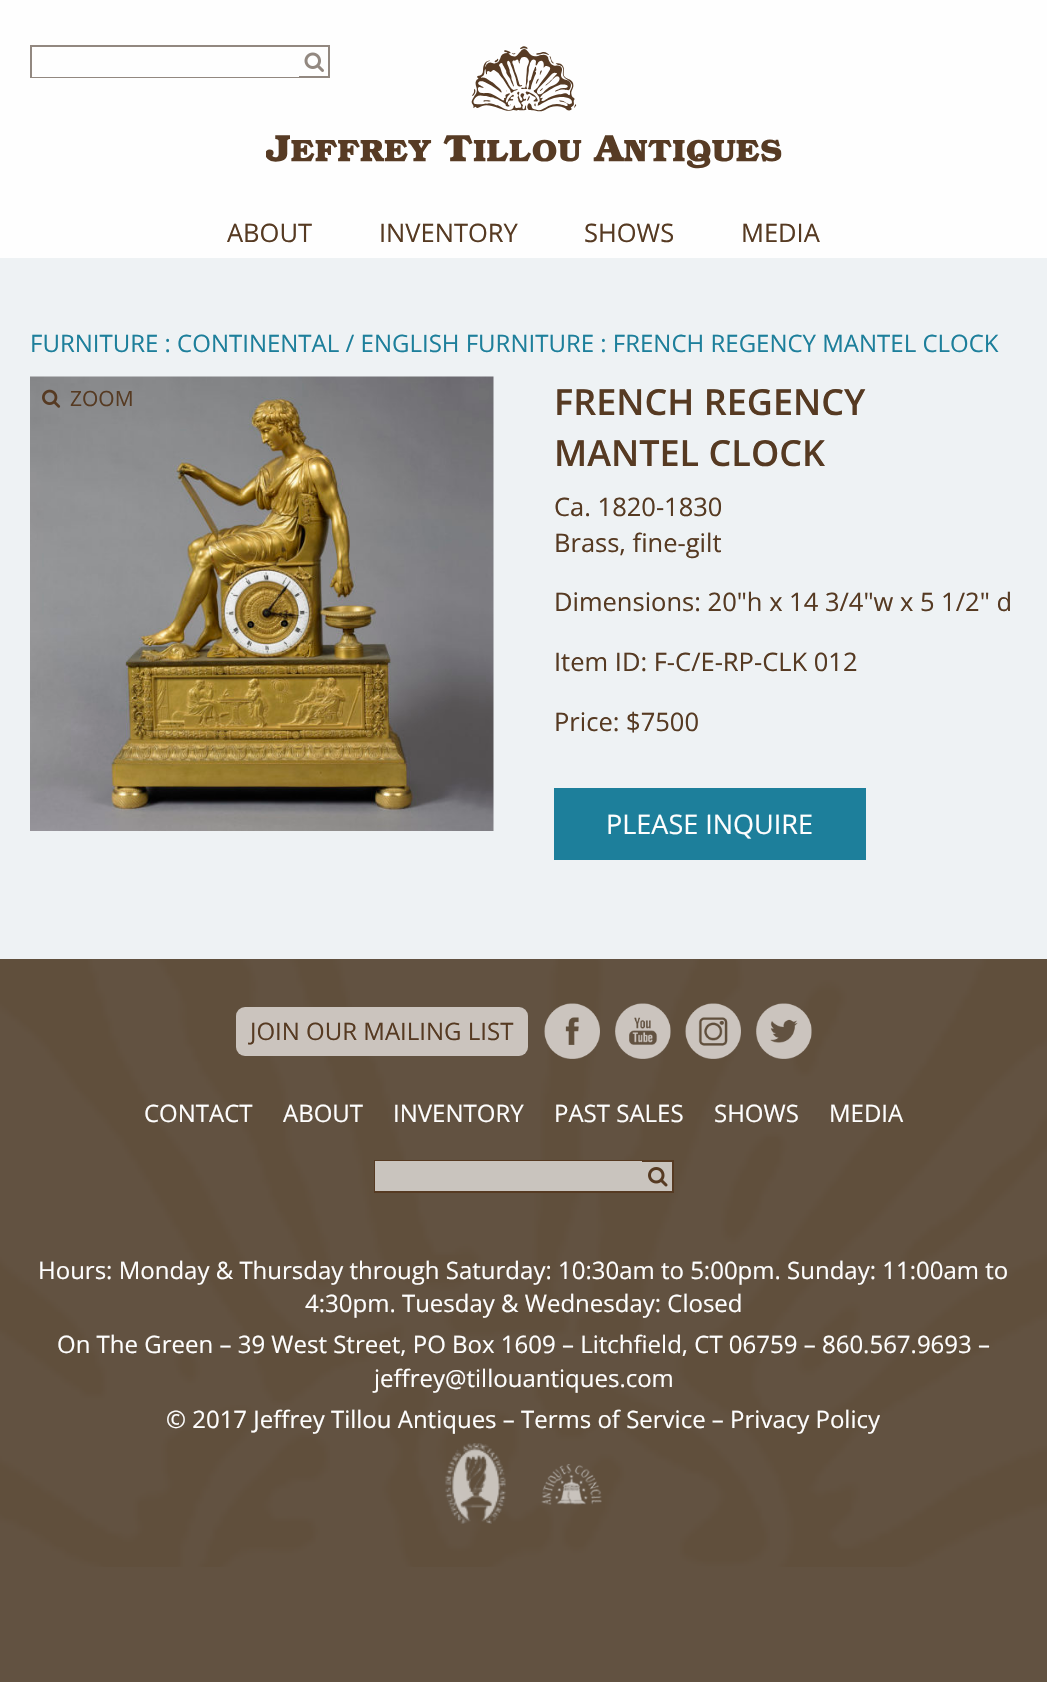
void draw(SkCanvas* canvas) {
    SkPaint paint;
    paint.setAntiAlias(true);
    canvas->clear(0xFF625241);
    paint.setColor(0xFFFEFEFE);
    canvas->drawRect(SkRect::MakeXYWH(0, 0, 1047, 258), paint);
    canvas->drawImageRect(SkImages::DeferredFromEncodedData(SkData::MakeFromFileName("img2.png")), SkRect::MakeXYWH(266, 46, 516, 123), SkSamplingOptions());
    paint.setStyle(SkPaint::kStroke_Style);
    paint.setStrokeWidth(2);
    paint.setColor(0xFF928880);
    canvas->drawRect(SkRect::MakeXYWH(31, 46, 298, 31), paint);
    canvas->drawImageRect(SkImages::DeferredFromEncodedData(SkData::MakeFromFileName("img1.png")), SkRect::MakeXYWH(304, 52, 20, 20), SkSamplingOptions());
    paint.setStyle(SkPaint::kFill_Style);
    paint.setColor(0xFFFEFEFE);
    canvas->drawRect(SkRect::MakeXYWH(32, 76, 267, 1), paint);
    SkFont font1(fontMgr->matchFamilyStyle("Open Sans", SkFontStyle::Normal()), 25.5f);
    font1.setSubpixel(true);
    paint.setColor(0xFF563A22);
    canvas->drawString("ABOUT", 227, 242, font1, paint);
    canvas->drawString("INVENTORY", 379, 242, font1, paint);
    canvas->drawString("SHOWS", 584, 242, font1, paint);
    canvas->drawString("MEDIA", 741, 242, font1, paint);
    paint.setColor(0xFFEEF2F4);
    canvas->drawRect(SkRect::MakeXYWH(0, 258, 1047, 701), paint);
    SkFont font2(fontMgr->matchFamilyStyle("Open Sans", SkFontStyle::Normal()), 24);
    font2.setSubpixel(true);
    paint.setColor(0xFF1D7F9B);
    canvas->drawString("FURNITURE : CONTINENTAL / ENGLISH FURNITURE : FRENCH REGENCY MANTEL CLOCK", 30, 352, font2, paint);
    canvas->drawImageRect(SkImages::DeferredFromEncodedData(SkData::MakeFromFileName("img3.png")), SkRect::MakeXYWH(30, 376, 464, 455), SkSamplingOptions());
    canvas->drawImageRect(SkImages::DeferredFromEncodedData(SkData::MakeFromFileName("img4.png")), SkRect::MakeXYWH(42, 389, 19, 19), SkSamplingOptions());
    SkFont font3(fontMgr->matchFamilyStyle("Open Sans", SkFontStyle::Normal()), 21);
    font3.setSubpixel(true);
    paint.setColor(0xFF563A22);
    canvas->drawString("ZOOM", 70, 406, font3, paint);
    SkFont font4(fontMgr->matchFamilyStyle("Open Sans", SkFontStyle(600, SkFontStyle::kNormal_Width, SkFontStyle::kUpright_Slant)), 36);
    font4.setSubpixel(true);
    canvas->drawString("FRENCH REGENCY", 554, 415, font4, paint);
    canvas->drawString("MANTEL CLOCK", 554, 466, font4, paint);
    canvas->drawString("Ca. 1820-1830", 554, 516, font1, paint);
    canvas->drawString("Brass, fine-gilt", 554, 552, font1, paint);
    canvas->drawString("Dimensions: 20\"h x 14 3/4\"w x 5 1/2\" d", 554, 611, font1, paint);
    canvas->drawString("Item ID: F-C/E-RP-CLK 012", 554, 671, font1, paint);
    canvas->drawString("Price: $7500", 554, 731, font1, paint);
    paint.setColor(0xFF1D7F9B);
    canvas->drawRect(SkRect::MakeXYWH(554, 788, 312, 72), paint);
    SkFont font5(fontMgr->matchFamilyStyle("Open Sans", SkFontStyle::Normal()), 27);
    font5.setSubpixel(true);
    paint.setColor(0xFFFEFEFE);
    canvas->drawString("PLEASE INQUIRE", 606, 834, font5, paint);
    canvas->drawImageRect(SkImages::DeferredFromEncodedData(SkData::MakeFromFileName("img5.png")), SkRect::MakeXYWH(0, 959, 1047, 608), SkSamplingOptions());
    paint.setColor(0xFFCBC4BE);
    canvas->drawRoundRect(SkRect::MakeXYWH(236, 1007, 292, 49), 9, 9, paint);
    paint.setColor(0xFF563A22);
    canvas->drawString("JOIN OUR MAILING LIST", 250, 1040, font2, paint);
    canvas->drawImageRect(SkImages::DeferredFromEncodedData(SkData::MakeFromFileName("img6.png")), SkRect::MakeXYWH(544, 1003, 56, 56), SkSamplingOptions());
    canvas->drawImageRect(SkImages::DeferredFromEncodedData(SkData::MakeFromFileName("img7.png")), SkRect::MakeXYWH(615, 1003, 56, 56), SkSamplingOptions());
    canvas->drawImageRect(SkImages::DeferredFromEncodedData(SkData::MakeFromFileName("img8.png")), SkRect::MakeXYWH(685, 1003, 56, 56), SkSamplingOptions());
    canvas->drawImageRect(SkImages::DeferredFromEncodedData(SkData::MakeFromFileName("img9.png")), SkRect::MakeXYWH(756, 1003, 56, 56), SkSamplingOptions());
    paint.setColor(0xFFFEFEFE);
    canvas->drawString("CONTACT", 144, 1122, font2, paint);
    canvas->drawString("ABOUT", 283, 1122, font2, paint);
    canvas->drawString("INVENTORY", 393, 1122, font2, paint);
    canvas->drawString("PAST SALES", 554, 1122, font2, paint);
    canvas->drawString("SHOWS", 714, 1122, font2, paint);
    canvas->drawString("MEDIA", 829, 1122, font2, paint);
    paint.setColor(0xFFC9C4BE);
    canvas->drawRect(SkRect::MakeXYWH(642, 1162, 30, 29), paint);
    paint.setStyle(SkPaint::kStroke_Style);
    paint.setColor(0xFF563A22);
    canvas->drawRect(SkRect::MakeXYWH(375, 1161, 298, 31), paint);
    paint.setStyle(SkPaint::kFill_Style);
    paint.setColor(0xFFC9C4BE);
    canvas->drawRect(SkRect::MakeXYWH(375, 1161, 267, 30), paint);
    canvas->drawImageRect(SkImages::DeferredFromEncodedData(SkData::MakeFromFileName("img10.png")), SkRect::MakeXYWH(648, 1167, 20, 20), SkSamplingOptions());
    paint.setColor(0xFFFEFEFE);
    canvas->drawString("Hours: Monday & Thursday through Saturday: 10:30am to 5:00pm. Sunday: 11:00am to", 38, 1279, font2, paint);
    canvas->drawString("4:30pm. Tuesday & Wednesday: Closed", 305, 1312, font2, paint);
    canvas->drawString("On The Green – 39 West Street, PO Box 1609 – Litchfield, CT 06759 – 860.567.9693 –", 57, 1353, font2, paint);
    canvas->drawString("jeffrey@tillouantiques.com", 374, 1387, font2, paint);
    canvas->drawString("© 2017 Jeffrey Tillou Antiques – Terms of Service – Privacy Policy", 166, 1428, font2, paint);
    canvas->drawImageRect(SkImages::DeferredFromEncodedData(SkData::MakeFromFileName("img11.png")), SkRect::MakeXYWH(445, 1443, 61, 81), SkSamplingOptions());
    canvas->drawImageRect(SkImages::DeferredFromEncodedData(SkData::MakeFromFileName("img12.png")), SkRect::MakeXYWH(541, 1464, 61, 41), SkSamplingOptions());
}
